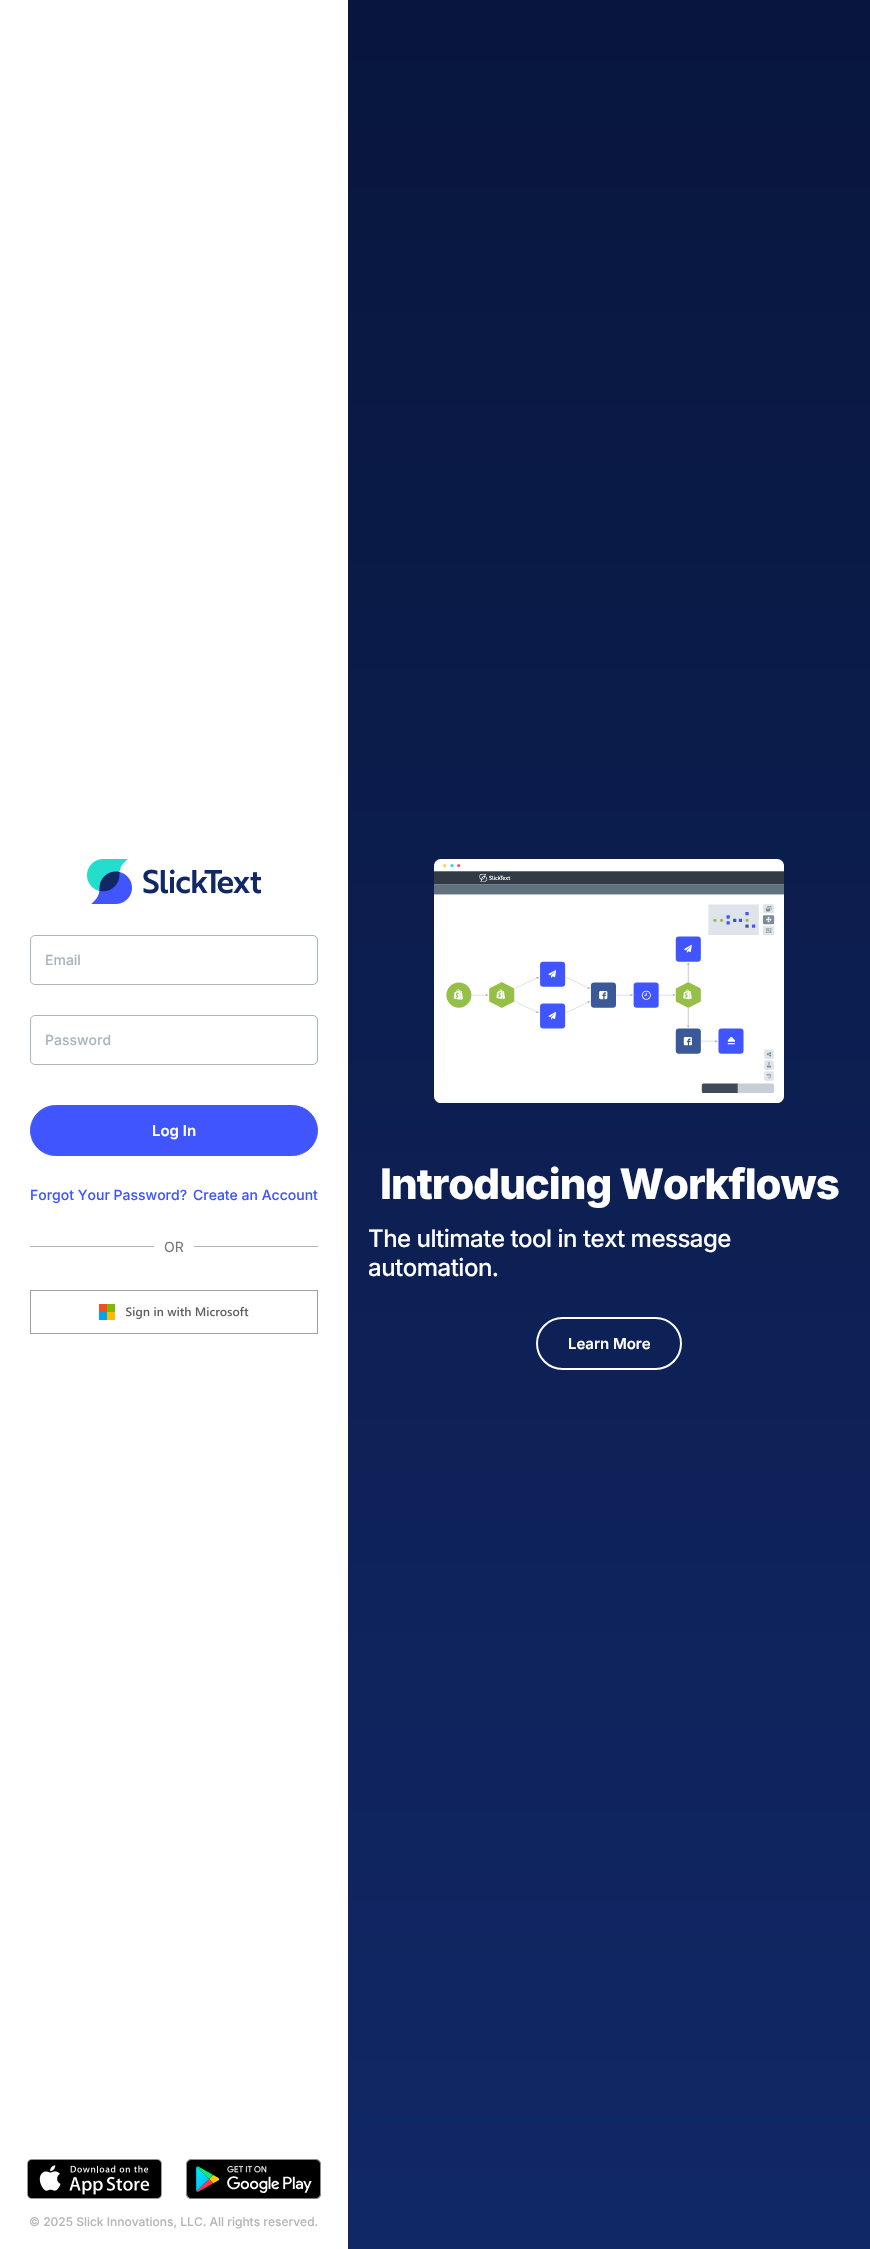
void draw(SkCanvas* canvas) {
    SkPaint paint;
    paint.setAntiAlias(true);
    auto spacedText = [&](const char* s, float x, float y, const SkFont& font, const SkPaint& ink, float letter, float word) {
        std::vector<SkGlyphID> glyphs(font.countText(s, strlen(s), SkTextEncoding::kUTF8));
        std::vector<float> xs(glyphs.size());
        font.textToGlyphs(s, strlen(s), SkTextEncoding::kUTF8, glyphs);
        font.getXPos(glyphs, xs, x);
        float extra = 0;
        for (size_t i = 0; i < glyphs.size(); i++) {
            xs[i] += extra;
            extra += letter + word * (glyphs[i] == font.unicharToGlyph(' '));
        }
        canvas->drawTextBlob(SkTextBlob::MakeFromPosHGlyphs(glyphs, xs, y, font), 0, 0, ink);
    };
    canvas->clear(0xFFFFFFFF);
    canvas->drawImageRect(SkImages::DeferredFromEncodedData(SkData::MakeFromFileName("img1.png")), SkRect::MakeXYWH(87, 859, 174, 45), SkSamplingOptions());
    paint.setStyle(SkPaint::kStroke_Style);
    paint.setStrokeWidth(1);
    paint.setColor(0xFFABB5BE);
    canvas->drawRoundRect(SkRect::MakeXYWH(30.5f, 935.5f, 287, 49), 4.5f, 4.5f, paint);
    SkFont font1(fontMgr->matchFamilyStyle("Inter", SkFontStyle(500, SkFontStyle::kNormal_Width, SkFontStyle::kUpright_Slant)), 14);
    font1.setSubpixel(true);
    paint.setStyle(SkPaint::kFill_Style);
    canvas->drawString("Email", 45, 965, font1, paint);
    paint.setStyle(SkPaint::kStroke_Style);
    canvas->drawRoundRect(SkRect::MakeXYWH(30.5f, 1015.5f, 287, 49), 4.5f, 4.5f, paint);
    paint.setStyle(SkPaint::kFill_Style);
    canvas->drawString("Password", 45, 1045, font1, paint);
    paint.setColor(0xFF4155FF);
    canvas->drawRoundRect(SkRect::MakeXYWH(30.5f, 1105.5f, 287, 50), 25, 25, paint);
    paint.setStyle(SkPaint::kStroke_Style);
    canvas->drawRoundRect(SkRect::MakeXYWH(30.5f, 1105.5f, 287, 50), 25, 25, paint);
    SkFont font2(fontMgr->matchFamilyStyle("Inter", SkFontStyle(600, SkFontStyle::kNormal_Width, SkFontStyle::kUpright_Slant)), 15);
    font2.setSubpixel(true);
    paint.setStyle(SkPaint::kFill_Style);
    paint.setColor(0xFFFFFFFF);
    canvas->drawString("Log In", 152, 1136, font2, paint);
    paint.setColor(0xFF4155FF);
    canvas->drawString("Forgot Your Password?", 30, 1200, font1, paint);
    canvas->drawString("Create an Account", 193, 1200, font1, paint);
    paint.setColor(0xFFABB5BE);
    canvas->drawRect(SkRect::MakeXYWH(30, 1246, 124, 1), paint);
    SkFont font3(fontMgr->matchFamilyStyle("Inter", SkFontStyle::Normal()), 14);
    font3.setSubpixel(true);
    paint.setColor(0xFF777777);
    canvas->drawString("OR", 164, 1252, font3, paint);
    paint.setColor(0xFFABB5BE);
    canvas->drawRect(SkRect::MakeXYWH(194, 1246, 124, 1), paint);
    canvas->drawImageRect(SkImages::DeferredFromEncodedData(SkData::MakeFromFileName("img2.png")), SkRect::MakeXYWH(30, 1290, 288, 44), SkSamplingOptions());
    canvas->drawImageRect(SkImages::DeferredFromEncodedData(SkData::MakeFromFileName("img3.png")), SkRect::MakeXYWH(27, 2159, 135, 40), SkSamplingOptions());
    canvas->drawImageRect(SkImages::DeferredFromEncodedData(SkData::MakeFromFileName("img4.png")), SkRect::MakeXYWH(186, 2159, 135, 40), SkSamplingOptions());
    SkFont font4(fontMgr->matchFamilyStyle("Inter", SkFontStyle(500, SkFontStyle::kNormal_Width, SkFontStyle::kUpright_Slant)), 12);
    font4.setSubpixel(true);
    paint.setColor(0xFFB2B7BC);
    canvas->drawString("© 2025 Slick Innovations, LLC. All rights reserved.", 29, 2226, font4, paint);
    {
        const SkColor colors[] = {0xFF08163D, 0xFF112867};
        const float stops[] = {0, 1};
        const SkPoint ends[] = {{609, 0}, {609, 2249}};
        paint.setShader(SkGradientShader::MakeLinear(ends, colors, stops, 2, SkTileMode::kClamp));
        paint.setAlpha(255);
    }
    canvas->drawRect(SkRect::MakeXYWH(348, 0, 522, 2249), paint);
    canvas->drawImageRect(SkImages::DeferredFromEncodedData(SkData::MakeFromFileName("img5.png")), SkRect::MakeXYWH(434, 859, 350, 244), SkSamplingOptions());
    SkFont font5(fontMgr->matchFamilyStyle("Inter", SkFontStyle(800, SkFontStyle::kNormal_Width, SkFontStyle::kUpright_Slant)), 42);
    font5.setSubpixel(true);
    paint.setShader(nullptr);
    paint.setColor(0xFFFFFFFF);
    spacedText("Introducing Workflows", 380, 1199, font5, paint, -1, 0);
    SkFont font6(fontMgr->matchFamilyStyle("Inter", SkFontStyle(500, SkFontStyle::kNormal_Width, SkFontStyle::kUpright_Slant)), 24);
    font6.setSubpixel(true);
    spacedText("The ultimate tool in text message", 368, 1247, font6, paint, -0.5f, 0);
    spacedText("automation.", 368, 1276, font6, paint, -0.5f, 0);
    paint.setStyle(SkPaint::kStroke_Style);
    paint.setStrokeWidth(2);
    canvas->drawRoundRect(SkRect::MakeXYWH(537, 1318, 144, 51), 25.5f, 25.5f, paint);
    paint.setStyle(SkPaint::kFill_Style);
    canvas->drawString("Learn More", 568, 1349, font2, paint);
}
